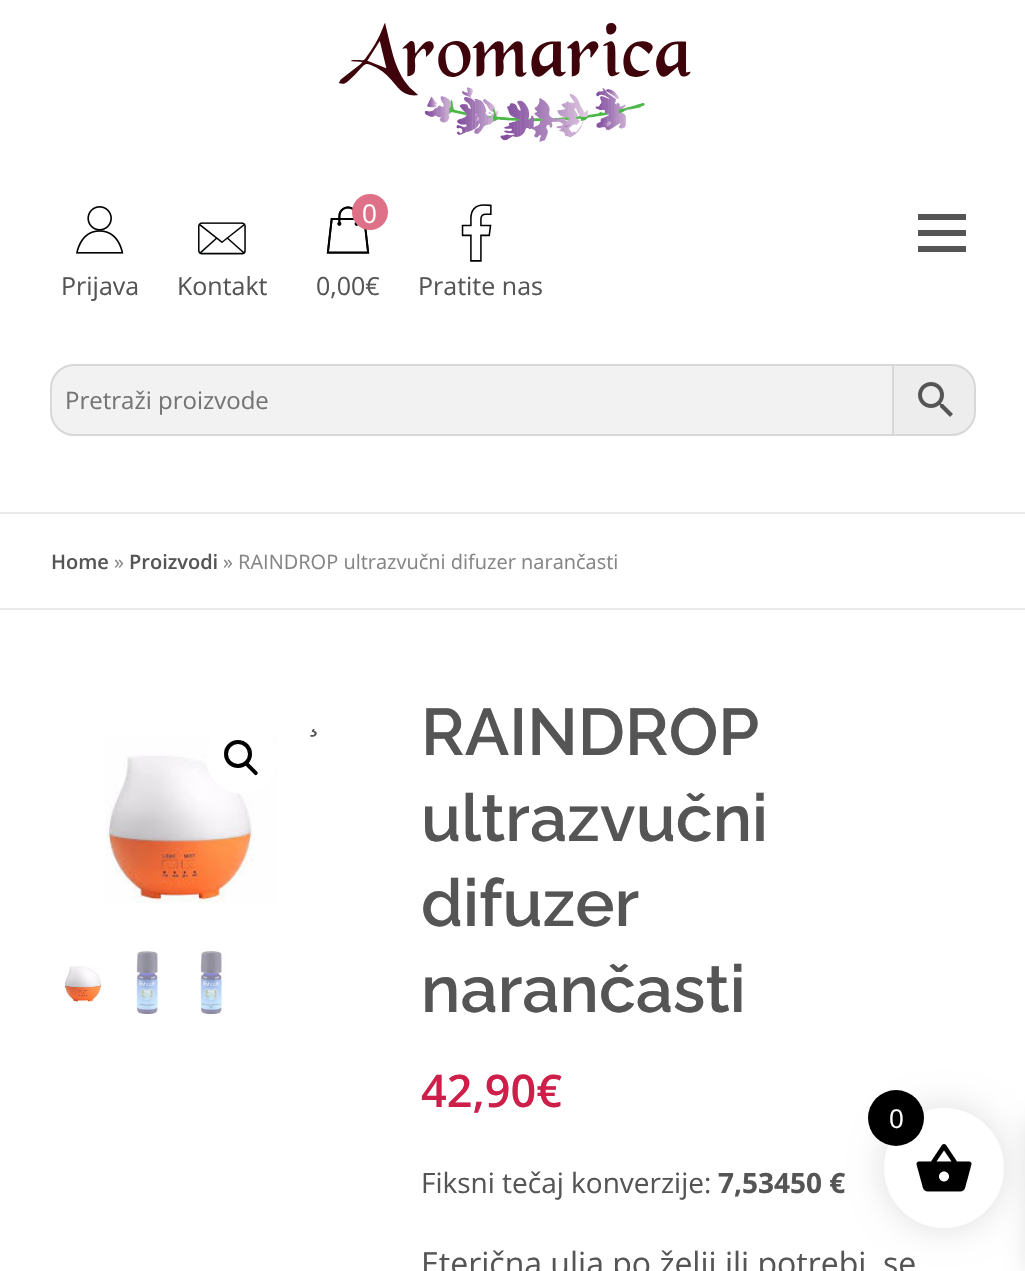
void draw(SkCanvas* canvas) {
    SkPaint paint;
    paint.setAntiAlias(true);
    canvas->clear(0xFFFFFFFF);
    canvas->drawImageRect(SkImages::DeferredFromEncodedData(SkData::MakeFromFileName("img1.png")), SkRect::MakeXYWH(339, 23, 352, 119), SkSamplingOptions());
    canvas->drawImageRect(SkImages::DeferredFromEncodedData(SkData::MakeFromFileName("img2.png")), SkRect::MakeXYWH(76, 206, 48, 48), SkSamplingOptions());
    SkFont font1(fontMgr->matchFamilyStyle("Open Sans", SkFontStyle::Normal()), 25);
    font1.setSubpixel(true);
    paint.setColor(0xFF555555);
    canvas->drawString("Prijava", 61, 295, font1, paint);
    canvas->drawImageRect(SkImages::DeferredFromEncodedData(SkData::MakeFromFileName("img3.png")), SkRect::MakeXYWH(198, 222, 48, 33), SkSamplingOptions());
    canvas->drawString("Kontakt", 177, 295, font1, paint);
    canvas->drawImageRect(SkImages::DeferredFromEncodedData(SkData::MakeFromFileName("img5.png")), SkRect::MakeXYWH(326, 206, 44, 48), SkSamplingOptions());
    canvas->drawImageRect(SkImages::DeferredFromEncodedData(SkData::MakeFromFileName("img4.png")), SkRect::MakeXYWH(326, 206, 44, 48), SkSamplingOptions());
    paint.setColor(0xFFDE7087);
    canvas->drawCircle(370, 212, 18, paint);
    SkFont font2(fontMgr->matchFamilyStyle("Open Sans", SkFontStyle::Normal()), 26);
    font2.setSubpixel(true);
    paint.setColor(0xFFFFFFFF);
    canvas->drawString("0", 362, 223, font2, paint);
    paint.setColor(0xFF555555);
    canvas->drawString("0,00€", 316, 295, font1, paint);
    canvas->drawImageRect(SkImages::DeferredFromEncodedData(SkData::MakeFromFileName("img6.png")), SkRect::MakeXYWH(461, 204, 31, 58), SkSamplingOptions());
    canvas->drawString("Pratite nas", 418, 295, font1, paint);
    paint.setColor(0xFFEDEDED);
    canvas->drawPath(SkPathBuilder().moveTo(893, 365).lineTo(952, 365).cubicTo(964.5f, 365, 975, 375.5f, 975, 388).lineTo(975, 412).cubicTo(975, 424.5f, 964.5f, 435, 952, 435).lineTo(893, 435).close().detach(), paint);
    paint.setStyle(SkPaint::kStroke_Style);
    paint.setStrokeWidth(2);
    paint.setColor(0xFFD8D8D8);
    canvas->drawPath(SkPathBuilder().moveTo(893, 365).lineTo(952, 365).cubicTo(964.5f, 365, 975, 375.5f, 975, 388).lineTo(975, 412).cubicTo(975, 424.5f, 964.5f, 435, 952, 435).lineTo(893, 435).close().detach(), paint);
    paint.setStyle(SkPaint::kFill_Style);
    paint.setColor(0xFFF2F2F2);
    canvas->drawPath(SkPathBuilder().moveTo(74, 365).lineTo(893, 365).lineTo(893, 435).lineTo(74, 435).cubicTo(61.5f, 435, 51, 424.5f, 51, 412).lineTo(51, 388).cubicTo(51, 375.5f, 61.5f, 365, 74, 365).close().detach(), paint);
    paint.setStyle(SkPaint::kStroke_Style);
    paint.setColor(0xFFD8D8D8);
    canvas->drawPath(SkPathBuilder().moveTo(74, 365).lineTo(893, 365).lineTo(893, 435).lineTo(74, 435).cubicTo(61.5f, 435, 51, 424.5f, 51, 412).lineTo(51, 388).cubicTo(51, 375.5f, 61.5f, 365, 74, 365).close().detach(), paint);
    SkFont font3(fontMgr->matchFamilyStyle("Open Sans", SkFontStyle::Normal()), 24);
    font3.setSubpixel(true);
    paint.setStyle(SkPaint::kFill_Style);
    paint.setColor(0xFF757575);
    canvas->drawString("Pretraži proizvode", 65, 409, font3, paint);
    canvas->drawImageRect(SkImages::DeferredFromEncodedData(SkData::MakeFromFileName("img7.png")), SkRect::MakeXYWH(918, 382, 35, 35), SkSamplingOptions());
    paint.setColor(0xFF555555);
    canvas->drawRect(SkRect::MakeXYWH(918, 230, 48, 6), paint);
    canvas->drawRect(SkRect::MakeXYWH(918, 214, 48, 6), paint);
    canvas->drawRect(SkRect::MakeXYWH(918, 246, 48, 6), paint);
    paint.setColor(0xFFE9E9E9);
    canvas->drawRect(SkRect::MakeXYWH(0, 512, 1025, 2), paint);
    canvas->drawRect(SkRect::MakeXYWH(0, 608, 1025, 2), paint);
    SkFont font4(fontMgr->matchFamilyStyle("Open Sans", SkFontStyle(600, SkFontStyle::kNormal_Width, SkFontStyle::kUpright_Slant)), 20);
    font4.setSubpixel(true);
    paint.setColor(0xFF555555);
    canvas->drawString("Home", 51, 569, font4, paint);
    SkFont font5(fontMgr->matchFamilyStyle("Open Sans", SkFontStyle::Normal()), 20);
    font5.setSubpixel(true);
    paint.setColor(0xFF858585);
    canvas->drawString("»", 114, 569, font5, paint);
    paint.setColor(0xFF555555);
    canvas->drawString("Proizvodi", 129, 569, font4, paint);
    paint.setColor(0xFF858585);
    canvas->drawString("» RAINDROP ultrazvučni difuzer narančasti", 223, 569, font5, paint);
    SkFont font6(fontMgr->matchFamilyStyle("Open Sans", SkFontStyle::Normal()), 32);
    font6.setSubpixel(true);
    paint.setColor(0xFF555555);
    canvas->drawString("¸", 310, 729, font6, paint);
    canvas->drawImageRect(SkImages::DeferredFromEncodedData(SkData::MakeFromFileName("img8.png")), SkRect::MakeXYWH(105, 735, 205, 168), SkSamplingOptions());
    paint.setColor(0xFFFFFFFF);
    canvas->drawCircle(242, 758, 36, paint);
    paint.setStyle(SkPaint::kStroke_Style);
    paint.setStrokeWidth(4);
    paint.setColor(0xFF000000);
    canvas->drawCircle(238, 754, 12, paint);
    paint.setStyle(SkPaint::kFill_Style);
    canvas->drawPath(SkPathBuilder().moveTo(246, 763).cubicTo(246.5f, 762.5f, 248, 762.5f, 248.5f, 763).lineTo(257, 771.5f).cubicTo(258, 772.5f, 258, 773.5f, 257, 774.5f).cubicTo(256.5f, 775.5f, 255, 775.5f, 254.5f, 774.5f).lineTo(246, 766).cubicTo(245, 765, 245, 764, 246, 763).close().detach(), paint);
    canvas->drawImageRect(SkImages::DeferredFromEncodedData(SkData::MakeFromFileName("img9.png")), SkRect::MakeXYWH(64, 966, 38, 37), SkSamplingOptions());
    canvas->drawImageRect(SkImages::DeferredFromEncodedData(SkData::MakeFromFileName("img10.png")), SkRect::MakeXYWH(136, 950, 25, 64), SkSamplingOptions());
    canvas->drawImageRect(SkImages::DeferredFromEncodedData(SkData::MakeFromFileName("img11.png")), SkRect::MakeXYWH(200, 950, 26, 64), SkSamplingOptions());
    SkFont font7(fontMgr->matchFamilyStyle("Raleway", SkFontStyle(600, SkFontStyle::kNormal_Width, SkFontStyle::kUpright_Slant)), 66);
    font7.setSubpixel(true);
    paint.setColor(0xFF555555);
    canvas->drawString("RAINDROP", 421, 755, font7, paint);
    canvas->drawString("ultrazvučni", 421, 841, font7, paint);
    canvas->drawString("difuzer", 421, 926, font7, paint);
    canvas->drawString("narančasti", 421, 1012, font7, paint);
    SkFont font8(fontMgr->matchFamilyStyle("Open Sans", SkFontStyle(600, SkFontStyle::kNormal_Width, SkFontStyle::kUpright_Slant)), 45);
    font8.setSubpixel(true);
    paint.setColor(0xFFCE1F4B);
    canvas->drawString("42,90€", 421, 1107, font8, paint);
    SkFont font9(fontMgr->matchFamilyStyle("Open Sans", SkFontStyle::Normal()), 28);
    font9.setSubpixel(true);
    paint.setColor(0xFF555555);
    canvas->drawString("Fiksni tečaj konverzije:", 421, 1193, font9, paint);
    SkFont font10(fontMgr->matchFamilyStyle("Open Sans", SkFontStyle::Bold()), 28);
    font10.setSubpixel(true);
    canvas->drawString("7,53450 €", 718, 1193, font10, paint);
    canvas->drawString("Eterična ulja po želji ili potrebi  se", 421, 1275, font6, paint);
    paint.setColor(0x1A000000);
    paint.setMaskFilter(SkMaskFilter::MakeBlur(kNormal_SkBlurStyle, 15));
    canvas->drawRoundRect(SkRect::MakeXYWH(880, 1104, 128, 128), 64, 64, paint);
    paint.setMaskFilter(nullptr);
    paint.setMaskFilter(SkMaskFilter::MakeBlur(kNormal_SkBlurStyle, 10));
    canvas->drawRect(SkRect::MakeXYWH(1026, 1120, 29, 150), paint);
    paint.setMaskFilter(nullptr);
    paint.setColor(0xFFFFFFFF);
    canvas->drawCircle(944, 1168, 60, paint);
    canvas->drawImageRect(SkImages::DeferredFromEncodedData(SkData::MakeFromFileName("img12.png")), SkRect::MakeXYWH(916, 1144, 56, 48), SkSamplingOptions());
    paint.setColor(0xFF000000);
    canvas->drawCircle(896, 1118, 28, paint);
    paint.setColor(0xFFFFFFFF);
    canvas->drawString("0", 889, 1128, font2, paint);
}
